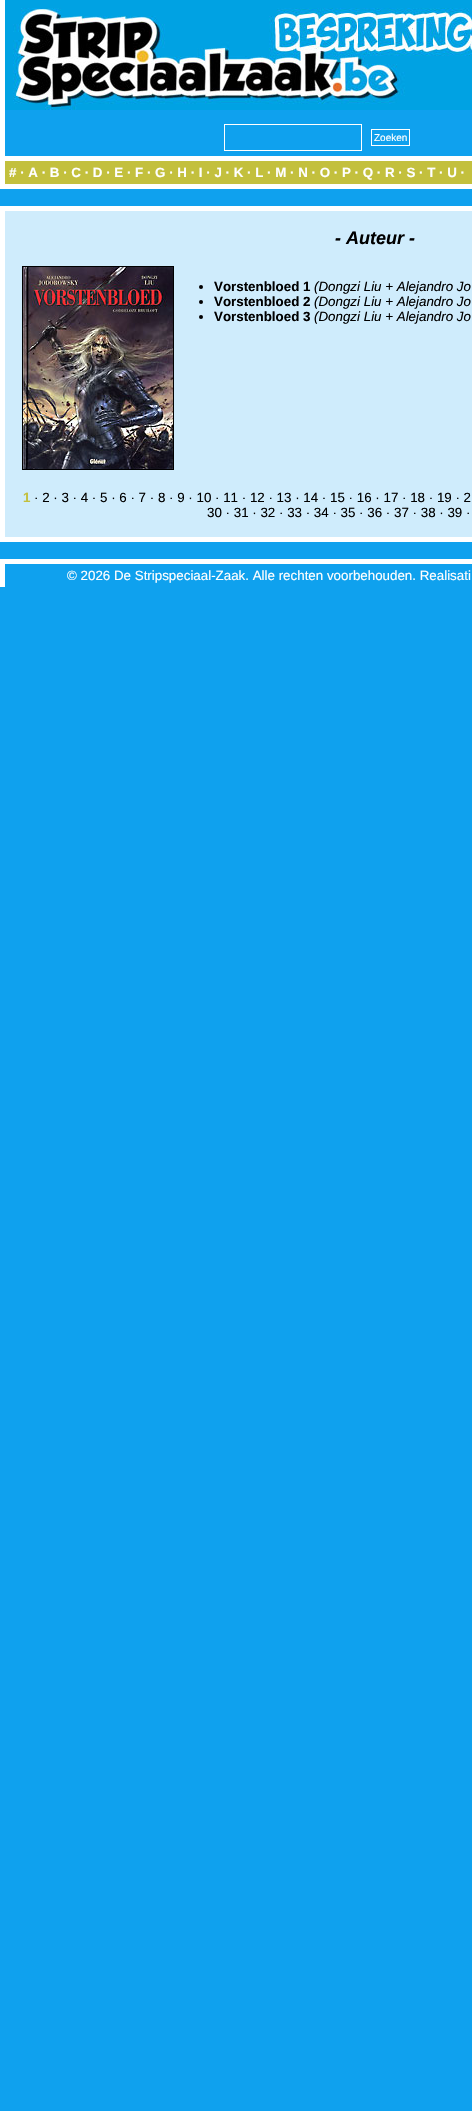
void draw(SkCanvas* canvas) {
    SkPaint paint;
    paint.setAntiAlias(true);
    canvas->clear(0xFF0FA1EE);
    paint.setColor(0xFFFFFFFF);
    canvas->drawRect(SkRect::MakeXYWH(0, 184, 472, 5), paint);
    canvas->drawRect(SkRect::MakeXYWH(0, 0, 5, 189), paint);
    canvas->drawImageRect(SkImages::DeferredFromEncodedData(SkData::MakeFromFileName("img1.png")), SkRect::MakeXYWH(5, 0, 467, 110), SkSamplingOptions());
    paint.setStyle(SkPaint::kStroke_Style);
    paint.setStrokeWidth(1);
    canvas->drawRect(SkRect::MakeXYWH(224.5f, 124.5f, 137, 26), paint);
    canvas->drawRect(SkRect::MakeXYWH(371.5f, 129.5f, 38, 16), paint);
    SkFont font1(fontMgr->matchFamilyStyle("Liberation Sans", SkFontStyle::Normal()), 10);
    font1.setSubpixel(true);
    paint.setStyle(SkPaint::kFill_Style);
    canvas->drawString("Zoeken", 374, 141, font1, paint);
    canvas->drawRect(SkRect::MakeXYWH(5, 156, 467, 5), paint);
    paint.setColor(0xFFC3C03D);
    canvas->drawRect(SkRect::MakeXYWH(5, 161, 467, 23), paint);
    SkFont font2(fontMgr->matchFamilyStyle("Liberation Sans", SkFontStyle::Bold()), 13.35f);
    font2.setSubpixel(true);
    paint.setColor(0xFFFFFFFF);
    canvas->drawString("# · A · B · C · D · E · F · G · H · I · J · K · L · M · N · O · P · Q · R · S · T · U ·", 9, 177, font2, paint);
    paint.setColor(0xFFCFECFC);
    canvas->drawRect(SkRect::MakeXYWH(2.5f, 208.5f, 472, 331), paint);
    paint.setStyle(SkPaint::kStroke_Style);
    paint.setStrokeWidth(5);
    paint.setColor(0xFFFFFFFF);
    canvas->drawRect(SkRect::MakeXYWH(2.5f, 208.5f, 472, 331), paint);
    SkFont font3(fontMgr->matchFamilyStyle("Liberation Sans", SkFontStyle::BoldItalic()), 18);
    font3.setSubpixel(true);
    paint.setStyle(SkPaint::kFill_Style);
    paint.setColor(0xFF000000);
    canvas->drawString("- Auteur -", 335, 244, font3, paint);
    paint.setStyle(SkPaint::kStroke_Style);
    paint.setStrokeWidth(1);
    canvas->drawRect(SkRect::MakeXYWH(22.5f, 266.5f, 151, 203), paint);
    canvas->drawImageRect(SkImages::DeferredFromEncodedData(SkData::MakeFromFileName("img2.png")), SkRect::MakeXYWH(23, 267, 150, 202), SkSamplingOptions());
    paint.setStyle(SkPaint::kFill_Style);
    canvas->drawCircle(201, 287, 2, paint);
    canvas->drawString("Vorstenbloed 1", 214, 291, font2, paint);
    SkFont font4(fontMgr->matchFamilyStyle("Liberation Sans", SkFontStyle::Italic()), 13.35f);
    font4.setSubpixel(true);
    canvas->drawString("(Dongzi Liu + Alejandro Jo", 314, 291, font4, paint);
    canvas->drawCircle(201, 302, 2, paint);
    canvas->drawString("Vorstenbloed 2", 214, 306, font2, paint);
    canvas->drawString("(Dongzi Liu + Alejandro Jo", 314, 306, font4, paint);
    canvas->drawCircle(201, 317, 2, paint);
    canvas->drawString("Vorstenbloed 3", 214, 321, font2, paint);
    canvas->drawString("(Dongzi Liu + Alejandro Jo", 314, 321, font4, paint);
    paint.setColor(0xFFC3C03D);
    canvas->drawString("1", 23, 502, font2, paint);
    SkFont font5(fontMgr->matchFamilyStyle("Liberation Sans", SkFontStyle::Normal()), 13.35f);
    font5.setSubpixel(true);
    paint.setColor(0xFF000000);
    canvas->drawString("· 2 · 3 · 4 · 5 · 6 · 7 · 8 · 9 · 10 · 11 · 12 · 13 · 14 · 15 · 16 · 17 · 18 · 19 · 2", 34, 502, font5, paint);
    canvas->drawString("30 · 31 · 32 · 33 · 34 · 35 · 36 · 37 · 38 · 39 ·", 207, 517, font5, paint);
    paint.setColor(0xFFFFFFFF);
    canvas->drawRect(SkRect::MakeXYWH(0, 559, 472, 5), paint);
    canvas->drawRect(SkRect::MakeXYWH(0, 559, 5, 28), paint);
    canvas->drawString("© 2026 De Stripspeciaal-Zaak. Alle rechten voorbehouden. Realisati", 67, 580, font5, paint);
}
